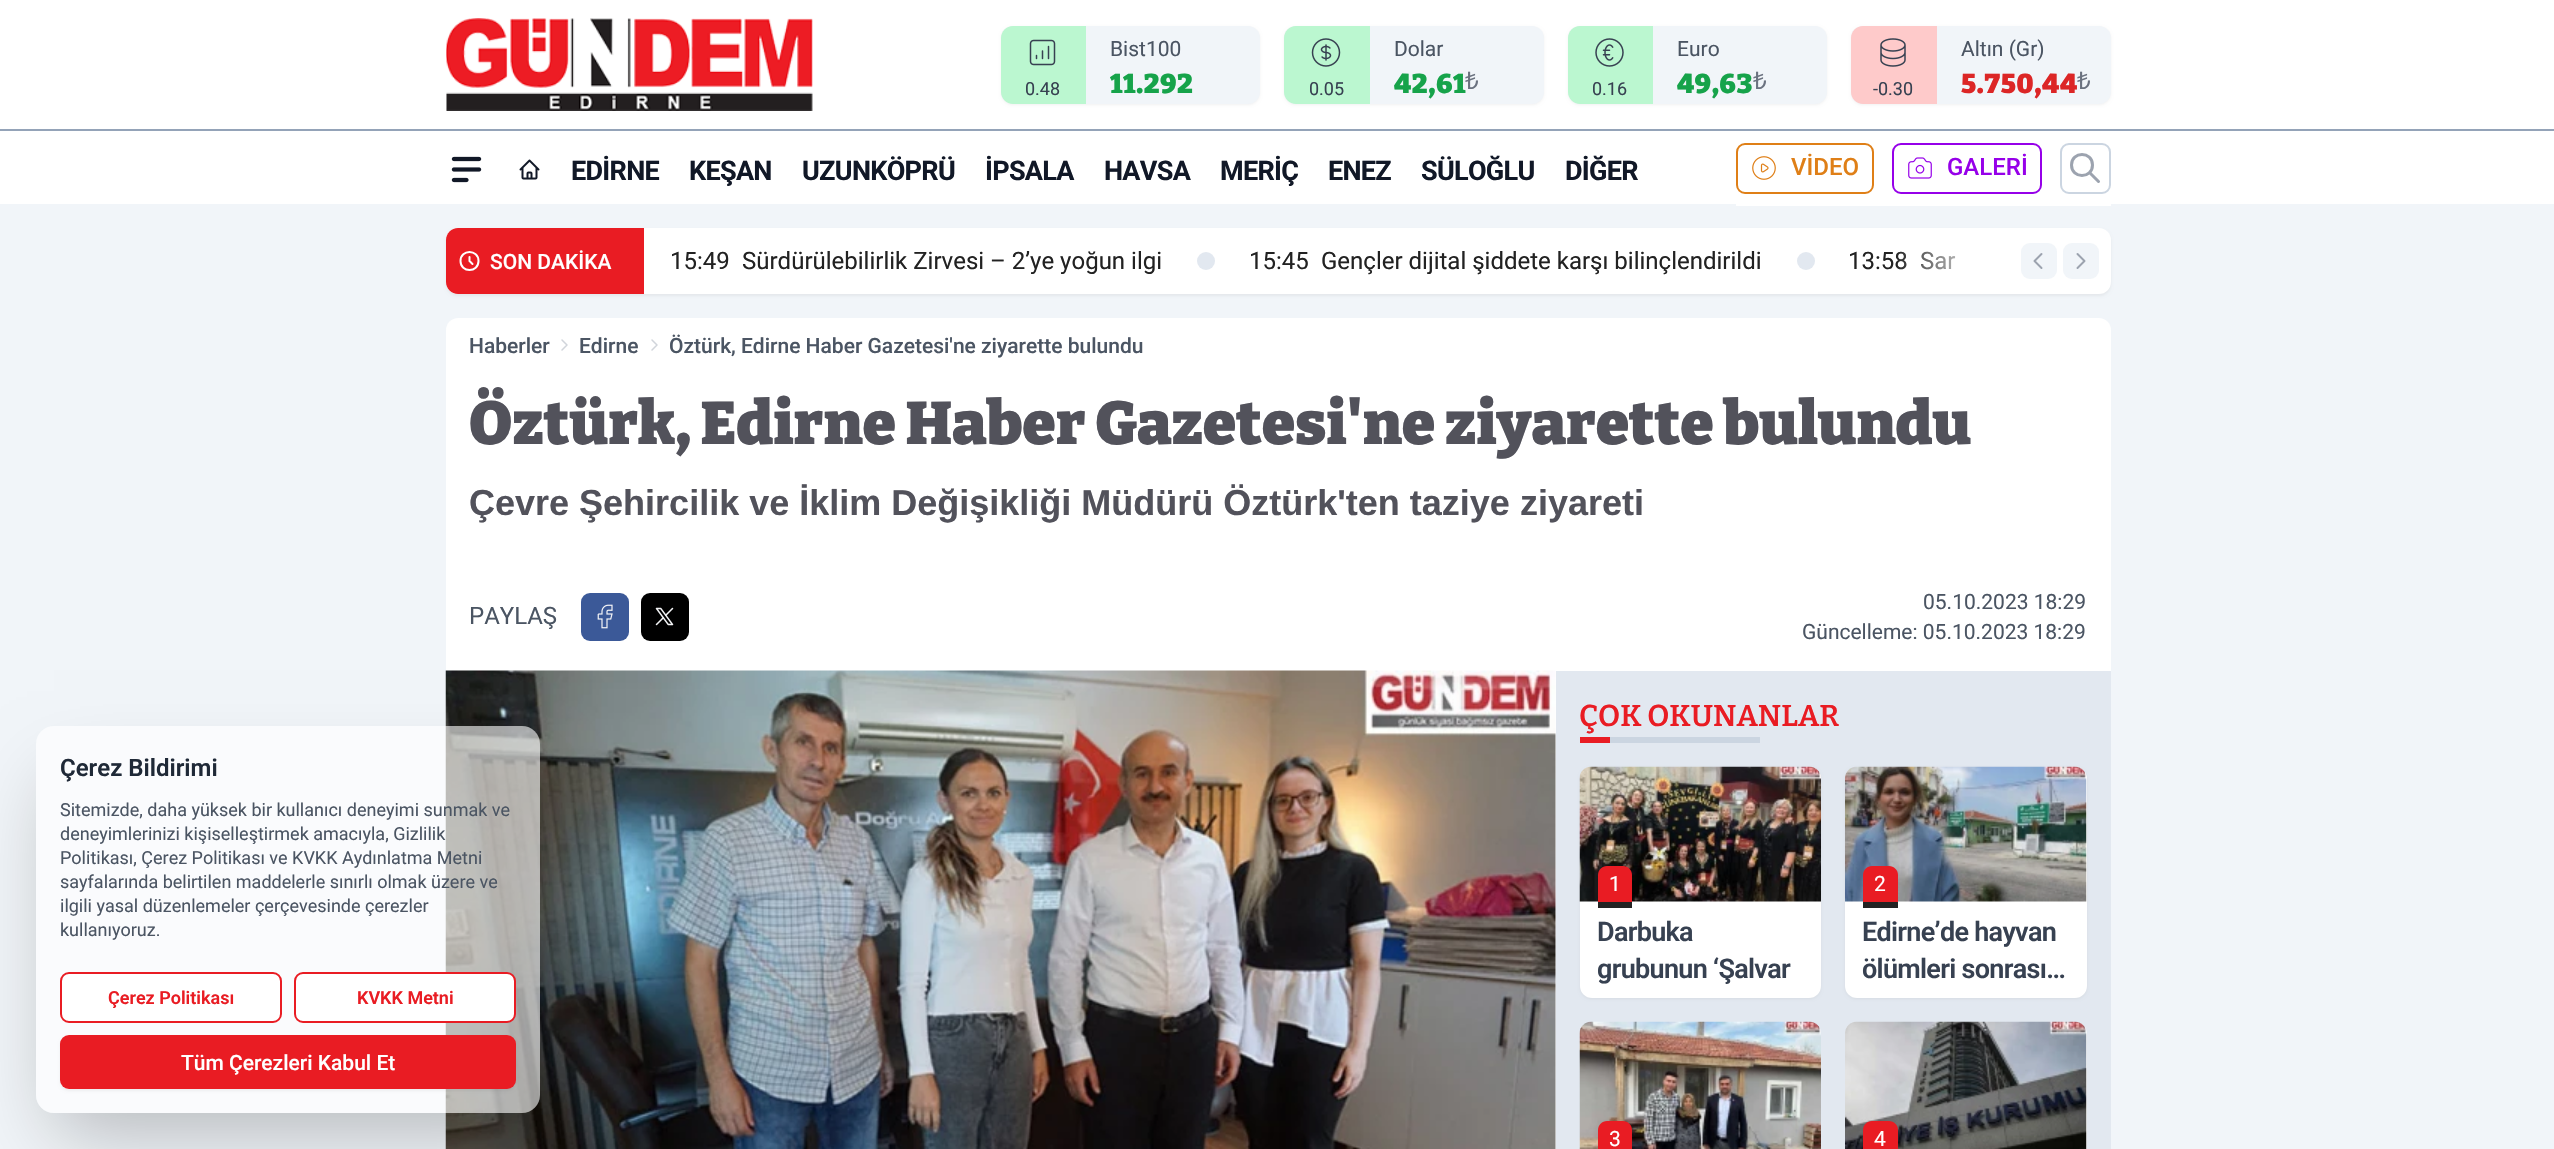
void draw(SkCanvas* canvas) {
    SkPaint paint;
    paint.setAntiAlias(true);
    auto spacedText = [&](const char* s, float x, float y, const SkFont& font, const SkPaint& ink, float letter, float word) {
        std::vector<SkGlyphID> glyphs(font.countText(s, strlen(s), SkTextEncoding::kUTF8));
        std::vector<float> xs(glyphs.size());
        font.textToGlyphs(s, strlen(s), SkTextEncoding::kUTF8, glyphs);
        font.getXPos(glyphs, xs, x);
        float extra = 0;
        for (size_t i = 0; i < glyphs.size(); i++) {
            xs[i] += extra;
            extra += letter + word * (glyphs[i] == font.unicharToGlyph(' '));
        }
        canvas->drawTextBlob(SkTextBlob::MakeFromPosHGlyphs(glyphs, xs, y, font), 0, 0, ink);
    };
    canvas->clear(0xFFF1F5F9);
    paint.setColor(0xFFFFFFFF);
    canvas->drawRoundRect(SkRect::MakeXYWH(446, 318, 1665, 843), 12, 12, paint);
    canvas->drawImageRect(SkImages::DeferredFromEncodedData(SkData::MakeFromFileName("img12.png")), SkRect::MakeXYWH(445, 670, 1111, 479), SkSamplingOptions());
    canvas->save();
    canvas->clipPath(SkPathBuilder(SkPathFillType::kEvenOdd).moveTo(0, 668).lineTo(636, 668).lineTo(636, 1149).lineTo(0, 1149).close().moveTo(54, 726).lineTo(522, 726).cubicTo(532, 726, 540, 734, 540, 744).lineTo(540, 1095).cubicTo(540, 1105, 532, 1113, 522, 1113).lineTo(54, 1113).cubicTo(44, 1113, 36, 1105, 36, 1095).lineTo(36, 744).cubicTo(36, 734, 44, 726, 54, 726).close().detach(), true);
    paint.setColor(0x40000000);
    paint.setMaskFilter(SkMaskFilter::MakeBlur(kNormal_SkBlurStyle, 37.5f));
    canvas->drawRect(SkRect::MakeXYWH(54, 782, 468, 351), paint);
    paint.setMaskFilter(nullptr);
    canvas->restore();
    paint.setColor(0x99FFFFFF);
    canvas->drawRoundRect(SkRect::MakeXYWH(36, 726, 504, 387), 18, 18, paint);
    SkFont font1(fontMgr->matchFamilyStyle("Roboto", SkFontStyle(600, SkFontStyle::kNormal_Width, SkFontStyle::kUpright_Slant)), 24);
    font1.setSubpixel(true);
    paint.setColor(0xFF1F2937);
    canvas->drawString("Çerez Bildirimi", 60, 776, font1, paint);
    SkFont font2(fontMgr->matchFamilyStyle("Roboto", SkFontStyle::Normal()), 18);
    font2.setSubpixel(true);
    paint.setColor(0xFF4B5563);
    canvas->drawString("Sitemizde, daha yüksek bir kullanıcı deneyimi sunmak ve", 60, 816, font2, paint);
    canvas->drawString("deneyimlerinizi kişiselleştirmek amacıyla, Gizlilik", 60, 840, font2, paint);
    canvas->drawString("Politikası, Çerez Politikası ve KVKK Aydınlatma Metni", 60, 864, font2, paint);
    canvas->drawString("sayfalarında belirtilen maddelerle sınırlı olmak üzere ve", 60, 888, font2, paint);
    canvas->drawString("ilgili yasal düzenlemeler çerçevesinde çerezler", 60, 912, font2, paint);
    canvas->drawString("kullanıyoruz.", 60, 936, font2, paint);
    paint.setColor(0xFFFFFFFF);
    canvas->drawRoundRect(SkRect::MakeXYWH(61, 973, 220, 49), 8, 8, paint);
    paint.setStyle(SkPaint::kStroke_Style);
    paint.setStrokeWidth(2);
    paint.setColor(0xFFE91C23);
    canvas->drawRoundRect(SkRect::MakeXYWH(61, 973, 220, 49), 8, 8, paint);
    SkFont font3(fontMgr->matchFamilyStyle("Roboto", SkFontStyle(600, SkFontStyle::kNormal_Width, SkFontStyle::kUpright_Slant)), 18);
    font3.setSubpixel(true);
    paint.setStyle(SkPaint::kFill_Style);
    canvas->drawString("Çerez Politikası", 108, 1004, font3, paint);
    paint.setColor(0xFFFFFFFF);
    canvas->drawRoundRect(SkRect::MakeXYWH(295, 973, 220, 49), 8, 8, paint);
    paint.setStyle(SkPaint::kStroke_Style);
    paint.setColor(0xFFE91C23);
    canvas->drawRoundRect(SkRect::MakeXYWH(295, 973, 220, 49), 8, 8, paint);
    paint.setStyle(SkPaint::kFill_Style);
    canvas->drawString("KVKK Metni", 357, 1004, font3, paint);
    paint.setColor(0x0D000000);
    paint.setMaskFilter(SkMaskFilter::MakeBlur(kNormal_SkBlurStyle, 1.5f));
    canvas->drawRoundRect(SkRect::MakeXYWH(60, 1037, 456, 54), 9, 9, paint);
    paint.setMaskFilter(nullptr);
    paint.setColor(0xFFE91C23);
    canvas->drawRoundRect(SkRect::MakeXYWH(60, 1035, 456, 54), 9, 9, paint);
    SkFont font4(fontMgr->matchFamilyStyle("Roboto", SkFontStyle(500, SkFontStyle::kNormal_Width, SkFontStyle::kUpright_Slant)), 21);
    font4.setSubpixel(true);
    paint.setColor(0xFFFFFFFF);
    canvas->drawString("Tüm Çerezleri Kabul Et", 181, 1070, font4, paint);
    canvas->drawRect(SkRect::MakeXYWH(0, 0, 2554, 129), paint);
    canvas->drawImageRect(SkImages::DeferredFromEncodedData(SkData::MakeFromFileName("img1.png")), SkRect::MakeXYWH(446, 18, 367, 93), SkSamplingOptions());
    paint.setColor(0x0D000000);
    paint.setMaskFilter(SkMaskFilter::MakeBlur(kNormal_SkBlurStyle, 1.5f));
    canvas->drawRoundRect(SkRect::MakeXYWH(1001, 27, 259, 78), 12, 12, paint);
    paint.setMaskFilter(nullptr);
    paint.setColor(0xFFF1F5F9);
    canvas->drawRoundRect(SkRect::MakeXYWH(1001, 26, 259, 78), 12, 12, paint);
    paint.setColor(0xFFBBF7D0);
    canvas->drawPath(SkPathBuilder().moveTo(1013, 26).lineTo(1086, 26).lineTo(1086, 104).lineTo(1013, 104).cubicTo(1006.5f, 104, 1001, 98.5f, 1001, 92).lineTo(1001, 38).cubicTo(1001, 31.5f, 1006.5f, 26, 1013, 26).close().detach(), paint);
    canvas->drawImageRect(SkImages::DeferredFromEncodedData(SkData::MakeFromFileName("img2.png")), SkRect::MakeXYWH(1029, 39, 27, 27), SkSamplingOptions());
    paint.setColor(0xFF374151);
    canvas->drawString("0.48", 1025, 95, font2, paint);
    SkFont font5(fontMgr->matchFamilyStyle("Roboto", SkFontStyle::Normal()), 21);
    font5.setSubpixel(true);
    paint.setColor(0xFF4B5563);
    canvas->drawString("Bist100", 1110, 56, font5, paint);
    SkFont font6(fontMgr->matchFamilyStyle("Bitter", SkFontStyle(100, SkFontStyle::kNormal_Width, SkFontStyle::kUpright_Slant)), 27);
    font6.setSubpixel(true);
    paint.setColor(0xFF16A34A);
    spacedText("11.292", 1110, 93, font6, paint, 0.75f, 0);
    paint.setColor(0x0D000000);
    paint.setMaskFilter(SkMaskFilter::MakeBlur(kNormal_SkBlurStyle, 1.5f));
    canvas->drawRoundRect(SkRect::MakeXYWH(1284, 27, 260, 78), 12, 12, paint);
    paint.setMaskFilter(nullptr);
    paint.setColor(0xFFF1F5F9);
    canvas->drawRoundRect(SkRect::MakeXYWH(1284, 26, 260, 78), 12, 12, paint);
    paint.setColor(0xFFBBF7D0);
    canvas->drawPath(SkPathBuilder().moveTo(1296, 26).lineTo(1370, 26).lineTo(1370, 104).lineTo(1296, 104).cubicTo(1289.5f, 104, 1284, 98.5f, 1284, 92).lineTo(1284, 38).cubicTo(1284, 31.5f, 1289.5f, 26, 1296, 26).close().detach(), paint);
    canvas->drawImageRect(SkImages::DeferredFromEncodedData(SkData::MakeFromFileName("img3.png")), SkRect::MakeXYWH(1311, 38, 30, 29), SkSamplingOptions());
    paint.setColor(0xFF374151);
    canvas->drawString("0.05", 1309, 95, font2, paint);
    paint.setColor(0xFF4B5563);
    canvas->drawString("Dolar", 1394, 56, font5, paint);
    paint.setColor(0xFF16A34A);
    spacedText("42,61", 1394, 93, font6, paint, 0.75f, 0);
    SkFont font7(fontMgr->matchFamilyStyle("Noto Sans", SkFontStyle::Normal()), 24);
    font7.setSubpixel(true);
    paint.setColor(0xFF6B7280);
    spacedText("₺", 1465, 89, font7, paint, 0.75f, 0);
    paint.setColor(0x0D000000);
    paint.setMaskFilter(SkMaskFilter::MakeBlur(kNormal_SkBlurStyle, 1.5f));
    canvas->drawRoundRect(SkRect::MakeXYWH(1568, 27, 259, 78), 12, 12, paint);
    paint.setMaskFilter(nullptr);
    paint.setColor(0xFFF1F5F9);
    canvas->drawRoundRect(SkRect::MakeXYWH(1568, 26, 259, 78), 12, 12, paint);
    paint.setColor(0xFFBBF7D0);
    canvas->drawPath(SkPathBuilder().moveTo(1580, 26).lineTo(1653, 26).lineTo(1653, 104).lineTo(1580, 104).cubicTo(1573.5f, 104, 1568, 98.5f, 1568, 92).lineTo(1568, 38).cubicTo(1568, 31.5f, 1573.5f, 26, 1580, 26).close().detach(), paint);
    canvas->drawImageRect(SkImages::DeferredFromEncodedData(SkData::MakeFromFileName("img4.png")), SkRect::MakeXYWH(1595, 38, 29, 29), SkSamplingOptions());
    paint.setColor(0xFF374151);
    canvas->drawString("0.16", 1592, 95, font2, paint);
    paint.setColor(0xFF4B5563);
    canvas->drawString("Euro", 1677, 56, font5, paint);
    paint.setColor(0xFF16A34A);
    spacedText("49,63", 1677, 93, font6, paint, 0.75f, 0);
    paint.setColor(0xFF6B7280);
    spacedText("₺", 1753, 89, font7, paint, 0.75f, 0);
    paint.setColor(0x0D000000);
    paint.setMaskFilter(SkMaskFilter::MakeBlur(kNormal_SkBlurStyle, 1.5f));
    canvas->drawRoundRect(SkRect::MakeXYWH(1851, 27, 260, 78), 12, 12, paint);
    paint.setMaskFilter(nullptr);
    paint.setColor(0xFFF1F5F9);
    canvas->drawRoundRect(SkRect::MakeXYWH(1851, 26, 260, 78), 12, 12, paint);
    paint.setColor(0xFFFECACA);
    canvas->drawPath(SkPathBuilder().moveTo(1863, 26).lineTo(1937, 26).lineTo(1937, 104).lineTo(1863, 104).cubicTo(1856.5f, 104, 1851, 98.5f, 1851, 92).lineTo(1851, 38).cubicTo(1851, 31.5f, 1856.5f, 26, 1863, 26).close().detach(), paint);
    canvas->drawImageRect(SkImages::DeferredFromEncodedData(SkData::MakeFromFileName("img5.png")), SkRect::MakeXYWH(1880, 38, 26, 29), SkSamplingOptions());
    paint.setColor(0xFF374151);
    canvas->drawString("-0.30", 1873, 95, font2, paint);
    paint.setColor(0xFF4B5563);
    canvas->drawString("Altın (Gr)", 1961, 56, font5, paint);
    paint.setColor(0xFFDC2626);
    spacedText("5.750,44", 1961, 93, font6, paint, 0.75f, 0);
    paint.setColor(0xFF6B7280);
    spacedText("₺", 2077, 89, font7, paint, 0.75f, 0);
    paint.setColor(0xFFFFFFFF);
    canvas->drawRect(SkRect::MakeXYWH(0, 131, 2554, 73), paint);
    paint.setColor(0xFF94A3B8);
    canvas->drawRect(SkRect::MakeXYWH(0, 129, 2554, 2), paint);
    canvas->drawImageRect(SkImages::DeferredFromEncodedData(SkData::MakeFromFileName("img6.png")), SkRect::MakeXYWH(451, 156, 31, 27), SkSamplingOptions());
    canvas->drawImageRect(SkImages::DeferredFromEncodedData(SkData::MakeFromFileName("img7.png")), SkRect::MakeXYWH(519, 159, 21, 21), SkSamplingOptions());
    SkFont font8(fontMgr->matchFamilyStyle("Roboto", SkFontStyle::Bold()), 27);
    font8.setSubpixel(true);
    paint.setColor(0xFF111827);
    spacedText("EDİRNE", 571, 180, font8, paint, -0.7f, 0);
    spacedText("KEŞAN", 689, 180, font8, paint, -0.7f, 0);
    spacedText("UZUNKÖPRÜ", 802, 180, font8, paint, -0.7f, 0);
    spacedText("İPSALA", 985, 180, font8, paint, -0.7f, 0);
    spacedText("HAVSA", 1104, 180, font8, paint, -0.7f, 0);
    spacedText("MERİÇ", 1220, 180, font8, paint, -0.7f, 0);
    spacedText("ENEZ", 1328, 180, font8, paint, -0.7f, 0);
    spacedText("SÜLOĞLU", 1421, 180, font8, paint, -0.7f, 0);
    spacedText("DİĞER", 1565, 180, font8, paint, -0.7f, 0);
    paint.setColor(0xFFFFFFFF);
    canvas->drawRect(SkRect::MakeXYWH(1736, 204, 375, 2), paint);
    paint.setStyle(SkPaint::kStroke_Style);
    paint.setColor(0xFFDF7F17);
    canvas->drawRoundRect(SkRect::MakeXYWH(1737, 144, 136, 49), 8, 8, paint);
    canvas->drawImageRect(SkImages::DeferredFromEncodedData(SkData::MakeFromFileName("img8.png")), SkRect::MakeXYWH(1752, 156, 24, 24), SkSamplingOptions());
    SkFont font9(fontMgr->matchFamilyStyle("Roboto", SkFontStyle(500, SkFontStyle::kNormal_Width, SkFontStyle::kUpright_Slant)), 24);
    font9.setSubpixel(true);
    paint.setStyle(SkPaint::kFill_Style);
    canvas->drawString("VİDEO", 1791, 175, font9, paint);
    paint.setStyle(SkPaint::kStroke_Style);
    paint.setColor(0xFF9600E9);
    canvas->drawRoundRect(SkRect::MakeXYWH(1893, 144, 148, 49), 8, 8, paint);
    canvas->drawImageRect(SkImages::DeferredFromEncodedData(SkData::MakeFromFileName("img9.png")), SkRect::MakeXYWH(1908, 157, 24, 22), SkSamplingOptions());
    paint.setStyle(SkPaint::kFill_Style);
    canvas->drawString("GALERİ", 1947, 175, font9, paint);
    paint.setStyle(SkPaint::kStroke_Style);
    paint.setColor(0xFFCBD5E1);
    canvas->drawRoundRect(SkRect::MakeXYWH(2061, 144, 49, 49), 8, 8, paint);
    paint.setStrokeWidth(3);
    paint.setStrokeCap(SkPaint::kRound_Cap);
    paint.setStrokeJoin(SkPaint::kRound_Join);
    paint.setColor(0xFF9CA3AF);
    canvas->drawPath(SkPathBuilder().moveTo(2098.5f, 181.5f).lineTo(2089.5f, 172.5f).moveTo(2092.5f, 165).cubicTo(2092.5f, 179, 2071.5f, 179, 2071.5f, 165).cubicTo(2071.5f, 151, 2092.5f, 151, 2092.5f, 165).close().detach(), paint);
    paint.setStyle(SkPaint::kFill_Style);
    paint.setColor(0x0D000000);
    paint.setMaskFilter(SkMaskFilter::MakeBlur(kNormal_SkBlurStyle, 1.5f));
    canvas->drawRoundRect(SkRect::MakeXYWH(446, 230, 1665, 66), 12, 12, paint);
    paint.setMaskFilter(nullptr);
    paint.setColor(0xFFFFFFFF);
    canvas->drawRoundRect(SkRect::MakeXYWH(446, 228, 1665, 66), 12, 12, paint);
    paint.setColor(0xFFE91C23);
    canvas->drawPath(SkPathBuilder().moveTo(458, 228).lineTo(644, 228).lineTo(644, 294).lineTo(458, 294).cubicTo(451.5f, 294, 446, 288.5f, 446, 282).lineTo(446, 240).cubicTo(446, 233.5f, 451.5f, 228, 458, 228).close().detach(), paint);
    paint.setStyle(SkPaint::kStroke_Style);
    paint.setStrokeWidth(2);
    paint.setColor(0xFFFFFFFF);
    canvas->drawPath(SkPathBuilder().moveTo(469.5f, 257).lineTo(469.5f, 261).lineTo(472.5f, 264).moveTo(478.5f, 261).cubicTo(478.5f, 273, 460.5f, 273, 460.5f, 261).cubicTo(460.5f, 249, 478.5f, 249, 478.5f, 261).close().detach(), paint);
    paint.setStyle(SkPaint::kFill_Style);
    canvas->drawString("SON DAKİKA", 490, 269, font4, paint);
    SkFont font10(fontMgr->matchFamilyStyle("Roboto", SkFontStyle::Normal()), 24);
    font10.setSubpixel(true);
    paint.setColor(0xFF222222);
    canvas->drawString("15:49", 670, 269, font10, paint);
    canvas->drawString("Sürdürülebilirlik Zirvesi – 2’ye yoğun ilgi", 742, 269, font10, paint);
    paint.setColor(0xFFE2E8F0);
    canvas->drawCircle(1206, 261, 9, paint);
    paint.setColor(0xFF222222);
    canvas->drawString("15:45", 1249, 269, font10, paint);
    canvas->drawString("Gençler dijital şiddete karşı bilinçlendirildi", 1321, 269, font10, paint);
    paint.setColor(0xFFE2E8F0);
    canvas->drawCircle(1806, 261, 9, paint);
    paint.setColor(0xFF222222);
    canvas->drawString("13:58", 1848, 269, font10, paint);
    canvas->drawString("Sar", 1920, 269, font10, paint);
    {
        const SkColor colors[] = {0xFFFFFFFF, 0x00FFFFFF};
        const float stops[] = {0, 1};
        const SkPoint ends[] = {{1991, 276}, {1895, 276}};
        paint.setShader(SkGradientShader::MakeLinear(ends, colors, stops, 2, SkTileMode::kClamp));
        paint.setAlpha(255);
    }
    canvas->drawRect(SkRect::MakeXYWH(1897, 251, 58, 19), paint);
    paint.setShader(nullptr);
    paint.setColor(0xFFF1F5F9);
    canvas->drawRoundRect(SkRect::MakeXYWH(2021, 243, 36, 36), 9, 9, paint);
    canvas->drawRoundRect(SkRect::MakeXYWH(2063, 243, 36, 36), 9, 9, paint);
    paint.setStyle(SkPaint::kStroke_Style);
    paint.setColor(0xFF9CA3AF);
    canvas->drawPath(SkPathBuilder().moveTo(2041.5f, 268).lineTo(2034.5f, 261).lineTo(2041.5f, 254).moveTo(2077.5f, 254).lineTo(2084.5f, 261).lineTo(2077.5f, 268).detach(), paint);
    paint.setStyle(SkPaint::kFill_Style);
    paint.setColor(0xFF4B5563);
    canvas->drawString("Haberler", 469, 353, font4, paint);
    paint.setStyle(SkPaint::kStroke_Style);
    paint.setStrokeWidth(1.5f);
    paint.setColor(0xFFD1D5DB);
    canvas->drawPath(SkPathBuilder().moveTo(562, 340).lineTo(567, 345).lineTo(562, 350).detach(), paint);
    paint.setStyle(SkPaint::kFill_Style);
    paint.setColor(0xFF4B5563);
    canvas->drawString("Edirne", 579, 353, font4, paint);
    paint.setStyle(SkPaint::kStroke_Style);
    paint.setColor(0xFFD1D5DB);
    canvas->drawPath(SkPathBuilder().moveTo(652, 340).lineTo(657, 345).lineTo(652, 350).detach(), paint);
    paint.setStyle(SkPaint::kFill_Style);
    paint.setColor(0xFF4B5563);
    canvas->drawString("Öztürk, Edirne Haber Gazetesi'ne ziyarette bulundu", 669, 353, font4, paint);
    SkFont font11(fontMgr->matchFamilyStyle("Bitter", SkFontStyle(100, SkFontStyle::kNormal_Width, SkFontStyle::kUpright_Slant)), 60);
    font11.setSubpixel(true);
    paint.setColor(0xFF52525B);
    canvas->drawString("Öztürk, Edirne Haber Gazetesi'ne ziyarette bulundu", 469, 444, font11, paint);
    SkFont font12(fontMgr->matchFamilyStyle("Liberation Sans", SkFontStyle::Bold()), 36);
    font12.setSubpixel(true);
    canvas->drawString("Çevre Şehircilik ve İklim Değişikliği Müdürü Öztürk'ten taziye ziyareti", 469, 515, font12, paint);
    paint.setColor(0xFF4B5563);
    canvas->drawString("PAYLAŞ", 469, 624, font10, paint);
    paint.setColor(0xFF3B5998);
    canvas->drawRoundRect(SkRect::MakeXYWH(581, 593, 48, 48), 9, 9, paint);
    canvas->drawImageRect(SkImages::DeferredFromEncodedData(SkData::MakeFromFileName("img10.png")), SkRect::MakeXYWH(597, 604, 16, 25), SkSamplingOptions());
    paint.setColor(0xFF000000);
    canvas->drawRoundRect(SkRect::MakeXYWH(641, 593, 48, 48), 9, 9, paint);
    canvas->drawImageRect(SkImages::DeferredFromEncodedData(SkData::MakeFromFileName("img11.png")), SkRect::MakeXYWH(655, 607, 19, 19), SkSamplingOptions());
    paint.setColor(0xFF4B5563);
    canvas->drawString("05.10.2023 18:29", 1923, 609, font5, paint);
    canvas->drawString("Güncelleme: 05.10.2023 18:29", 1802, 639, font5, paint);
    paint.setColor(0xFFE2E8F0);
    canvas->drawRect(SkRect::MakeXYWH(1556, 671, 555, 478), paint);
    SkFont font13(fontMgr->matchFamilyStyle("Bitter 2", SkFontStyle(100, SkFontStyle::kNormal_Width, SkFontStyle::kUpright_Slant)), 30);
    font13.setSubpixel(true);
    paint.setColor(0xFFE91C23);
    canvas->drawString("ÇOK OKUNANLAR", 1579, 726, font13, paint);
    canvas->drawRect(SkRect::MakeXYWH(1580, 737, 30, 6), paint);
    paint.setColor(0xFFCBD5E1);
    canvas->drawRect(SkRect::MakeXYWH(1610, 737, 150, 6), paint);
    paint.setColor(0x0D000000);
    paint.setMaskFilter(SkMaskFilter::MakeBlur(kNormal_SkBlurStyle, 1.5f));
    canvas->drawRoundRect(SkRect::MakeXYWH(1580, 768, 241, 231), 12, 12, paint);
    paint.setMaskFilter(nullptr);
    paint.setColor(0xFFFFFFFF);
    canvas->drawRoundRect(SkRect::MakeXYWH(1580, 767, 241, 231), 12, 12, paint);
    canvas->drawImageRect(SkImages::DeferredFromEncodedData(SkData::MakeFromFileName("img13.png")), SkRect::MakeXYWH(1579, 766, 242, 136), SkSamplingOptions());
    paint.setColor(0xFFE91C23);
    canvas->drawPath(SkPathBuilder().moveTo(1607, 866).lineTo(1623, 866).cubicTo(1628, 866, 1632, 870, 1632, 875).lineTo(1632, 902).lineTo(1598, 902).lineTo(1598, 875).cubicTo(1598, 870, 1602, 866, 1607, 866).close().detach(), paint);
    paint.setColor(0xFF222222);
    canvas->drawRect(SkRect::MakeXYWH(1598, 902, 34, 6), paint);
    paint.setColor(0xFFFFFFFF);
    canvas->drawString("1", 1609, 891, font5, paint);
    SkFont font14(fontMgr->matchFamilyStyle("Roboto", SkFontStyle(600, SkFontStyle::kNormal_Width, SkFontStyle::kUpright_Slant)), 27);
    font14.setSubpixel(true);
    paint.setColor(0xFF374151);
    spacedText("Darbuka", 1597, 941, font14, paint, -0.7f, 0);
    spacedText("grubunun ‘Şalvar", 1597, 978, font14, paint, -0.7f, 0);
    paint.setColor(0x0D000000);
    paint.setMaskFilter(SkMaskFilter::MakeBlur(kNormal_SkBlurStyle, 1.5f));
    canvas->drawRoundRect(SkRect::MakeXYWH(1845, 768, 242, 231), 12, 12, paint);
    paint.setMaskFilter(nullptr);
    paint.setColor(0xFFFFFFFF);
    canvas->drawRoundRect(SkRect::MakeXYWH(1845, 767, 242, 231), 12, 12, paint);
    canvas->drawImageRect(SkImages::DeferredFromEncodedData(SkData::MakeFromFileName("img14.png")), SkRect::MakeXYWH(1845, 766, 242, 136), SkSamplingOptions());
    paint.setColor(0xFFE91C23);
    canvas->drawPath(SkPathBuilder().moveTo(1872, 866).lineTo(1889, 866).cubicTo(1894, 866, 1898, 870, 1898, 875).lineTo(1898, 902).lineTo(1863, 902).lineTo(1863, 875).cubicTo(1863, 870, 1867, 866, 1872, 866).close().detach(), paint);
    paint.setColor(0xFF222222);
    canvas->drawRect(SkRect::MakeXYWH(1863, 902, 35, 6), paint);
    paint.setColor(0xFFFFFFFF);
    canvas->drawString("2", 1874, 891, font5, paint);
    paint.setColor(0xFF374151);
    spacedText("Edirne’de hayvan", 1862, 941, font14, paint, -0.7f, 0);
    spacedText("ölümleri sonrası…", 1862, 978, font14, paint, -0.7f, 0);
    canvas->drawImageRect(SkImages::DeferredFromEncodedData(SkData::MakeFromFileName("img15.png")), SkRect::MakeXYWH(1579, 1021, 242, 128), SkSamplingOptions());
    paint.setColor(0xFFE91C23);
    canvas->drawPath(SkPathBuilder().moveTo(1607, 1121).lineTo(1623, 1121).cubicTo(1628, 1121, 1632, 1125, 1632, 1130).lineTo(1632, 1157).lineTo(1598, 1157).lineTo(1598, 1130).cubicTo(1598, 1125, 1602, 1121, 1607, 1121).close().detach(), paint);
    paint.setColor(0xFFFFFFFF);
    canvas->drawString("3", 1609, 1146, font5, paint);
    canvas->drawRoundRect(SkRect::MakeXYWH(1845, 1022, 242, 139), 12, 12, paint);
    canvas->drawImageRect(SkImages::DeferredFromEncodedData(SkData::MakeFromFileName("img16.png")), SkRect::MakeXYWH(1845, 1021, 242, 128), SkSamplingOptions());
    paint.setColor(0xFFE91C23);
    canvas->drawPath(SkPathBuilder().moveTo(1872, 1121).lineTo(1889, 1121).cubicTo(1894, 1121, 1898, 1125, 1898, 1130).lineTo(1898, 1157).lineTo(1863, 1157).lineTo(1863, 1130).cubicTo(1863, 1125, 1867, 1121, 1872, 1121).close().detach(), paint);
    paint.setColor(0xFFFFFFFF);
    canvas->drawString("4", 1874, 1146, font5, paint);
}
